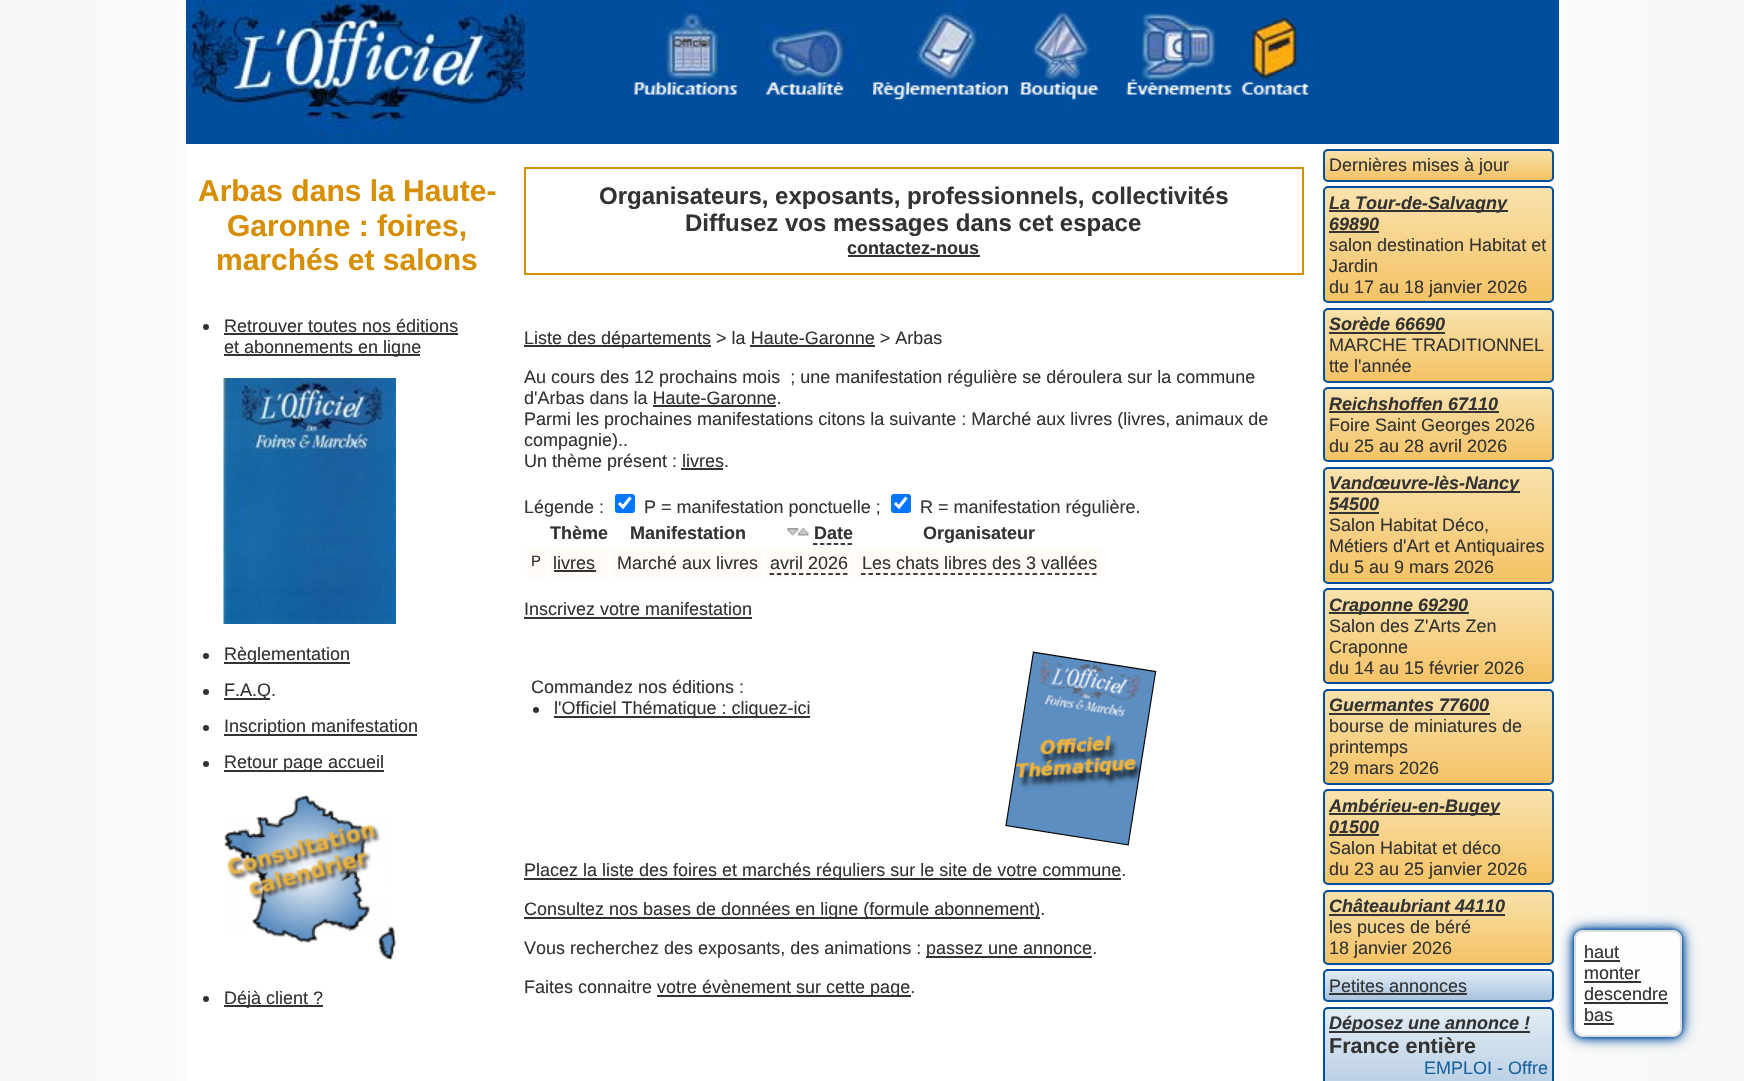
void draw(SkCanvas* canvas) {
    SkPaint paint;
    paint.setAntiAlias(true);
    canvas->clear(0xFFFFFFFF);
    {
        const SkColor colors[] = {0xFFF5F6F6, 0xFFFFFFFF, 0xFFFFFFFF, 0xFFF5F6F6};
        const float stops[] = {0, 0.2f, 0.8f, 1};
        const SkPoint ends[] = {{0, 625}, {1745, 625}};
        paint.setShader(SkGradientShader::MakeLinear(ends, colors, stops, 4, SkTileMode::kClamp));
        paint.setAlpha(255);
    }
    canvas->drawRect(SkRect::MakeXYWH(0, 0, 1744, 1081), paint);
    paint.setShader(nullptr);
    paint.setColor(0xFFFFFFFF);
    canvas->drawRect(SkRect::MakeXYWH(186, 144, 1373, 937), paint);
    paint.setColor(0xFF014E9E);
    canvas->drawRect(SkRect::MakeXYWH(186, 0, 1373, 144), paint);
    canvas->drawImageRect(SkImages::DeferredFromEncodedData(SkData::MakeFromFileName("img1.png")), SkRect::MakeXYWH(186, 0, 240, 107), SkSamplingOptions());
    canvas->drawImageRect(SkImages::DeferredFromEncodedData(SkData::MakeFromFileName("img2.png")), SkRect::MakeXYWH(426, 0, 102, 107), SkSamplingOptions());
    canvas->drawImageRect(SkImages::DeferredFromEncodedData(SkData::MakeFromFileName("img3.png")), SkRect::MakeXYWH(634, 0, 107, 96), SkSamplingOptions());
    canvas->drawImageRect(SkImages::DeferredFromEncodedData(SkData::MakeFromFileName("img4.png")), SkRect::MakeXYWH(765, 24, 96, 72), SkSamplingOptions());
    canvas->drawImageRect(SkImages::DeferredFromEncodedData(SkData::MakeFromFileName("img5.png")), SkRect::MakeXYWH(873, 0, 135, 107), SkSamplingOptions());
    canvas->drawImageRect(SkImages::DeferredFromEncodedData(SkData::MakeFromFileName("img6.png")), SkRect::MakeXYWH(1019, 9, 85, 97), SkSamplingOptions());
    canvas->drawImageRect(SkImages::DeferredFromEncodedData(SkData::MakeFromFileName("img7.png")), SkRect::MakeXYWH(1126, 12, 107, 84), SkSamplingOptions());
    canvas->drawImageRect(SkImages::DeferredFromEncodedData(SkData::MakeFromFileName("img8.png")), SkRect::MakeXYWH(1233, 12, 84, 85), SkSamplingOptions());
    canvas->drawImageRect(SkImages::DeferredFromEncodedData(SkData::MakeFromFileName("img9.png")), SkRect::MakeXYWH(305, 112, 109, 25), SkSamplingOptions());
    SkFont font1(fontMgr->matchFamilyStyle("Liberation Sans", SkFontStyle::Bold()), 30);
    font1.setSubpixel(true);
    paint.setColor(0xFFD78E01);
    canvas->drawString("Arbas dans la Haute-", 198, 201, font1, paint);
    canvas->drawString("Garonne : foires,", 227, 236, font1, paint);
    canvas->drawString("marchés et salons", 216, 270, font1, paint);
    paint.setColor(0xFF333333);
    canvas->drawCircle(206, 327, 3, paint);
    SkFont font2(fontMgr->matchFamilyStyle("Liberation Sans", SkFontStyle::Normal()), 18);
    font2.setSubpixel(true);
    canvas->drawString("Retrouver toutes nos éditions", 224, 332, font2, paint);
    canvas->drawRect(SkRect::MakeXYWH(224, 333, 234, 2), paint);
    canvas->drawRect(SkRect::MakeXYWH(224, 354, 196, 2), paint);
    canvas->drawString("et abonnements en ligne", 224, 353, font2, paint);
    canvas->drawImageRect(SkImages::DeferredFromEncodedData(SkData::MakeFromFileName("img10.png")), SkRect::MakeXYWH(223, 378, 173, 246), SkSamplingOptions());
    canvas->drawCircle(206, 656, 3, paint);
    canvas->drawRect(SkRect::MakeXYWH(224, 662, 126, 2), paint);
    canvas->drawString("Règlementation", 224, 660, font2, paint);
    canvas->drawCircle(206, 692, 3, paint);
    canvas->drawRect(SkRect::MakeXYWH(224, 698, 46, 2), paint);
    canvas->drawString("F.A.Q.", 224, 696, font2, paint);
    canvas->drawCircle(206, 728, 3, paint);
    canvas->drawRect(SkRect::MakeXYWH(224, 734, 193, 2), paint);
    canvas->drawString("Inscription manifestation", 224, 732, font2, paint);
    canvas->drawCircle(206, 764, 3, paint);
    canvas->drawRect(SkRect::MakeXYWH(224, 770, 160, 2), paint);
    canvas->drawString("Retour page accueil", 224, 768, font2, paint);
    canvas->drawImageRect(SkImages::DeferredFromEncodedData(SkData::MakeFromFileName("img11.png")), SkRect::MakeXYWH(224, 795, 172, 165), SkSamplingOptions());
    canvas->drawCircle(206, 999, 3, paint);
    canvas->drawRect(SkRect::MakeXYWH(224, 1005, 99, 2), paint);
    canvas->drawString("Déjà client ?", 224, 1004, font2, paint);
    canvas->save();
    canvas->clipPath(SkPathBuilder().moveTo(1328, 149).lineTo(1549, 149).cubicTo(1552, 149, 1554, 151, 1554, 154).lineTo(1554, 177).cubicTo(1554, 180, 1552, 182, 1549, 182).lineTo(1328, 182).cubicTo(1325, 182, 1323, 180, 1323, 177).lineTo(1323, 154).cubicTo(1323, 151, 1325, 149, 1328, 149).close().detach(), true);
    {
        const SkColor colors[] = {0xFFF9E2AD, 0xFFF5C264};
        const float stops[] = {0, 1};
        const SkPoint ends[] = {{1325, 150}, {1325, 180}};
        paint.setShader(SkGradientShader::MakeLinear(ends, colors, stops, 2, SkTileMode::kClamp));
        paint.setAlpha(255);
    }
    canvas->drawRect(SkRect::MakeXYWH(1323, 150, 231, 30), paint);
    canvas->restore();
    paint.setStyle(SkPaint::kStroke_Style);
    paint.setStrokeWidth(2);
    paint.setShader(nullptr);
    paint.setColor(0xFF014E9E);
    canvas->drawRoundRect(SkRect::MakeXYWH(1324, 150, 229, 31), 4, 4, paint);
    paint.setStyle(SkPaint::kFill_Style);
    paint.setColor(0xFF333333);
    canvas->drawString("Dernières mises à jour", 1329, 171, font2, paint);
    canvas->save();
    canvas->clipPath(SkPathBuilder().moveTo(1328, 186).lineTo(1549, 186).cubicTo(1552, 186, 1554, 188, 1554, 191).lineTo(1554, 298).cubicTo(1554, 301, 1552, 303, 1549, 303).lineTo(1328, 303).cubicTo(1325, 303, 1323, 301, 1323, 298).lineTo(1323, 191).cubicTo(1323, 188, 1325, 186, 1328, 186).close().detach(), true);
    {
        const SkColor colors[] = {0xFFF9E2AD, 0xFFF5C264};
        const float stops[] = {0, 1};
        const SkPoint ends[] = {{1325, 188}, {1325, 302}};
        paint.setShader(SkGradientShader::MakeLinear(ends, colors, stops, 2, SkTileMode::kClamp));
        paint.setAlpha(255);
    }
    canvas->drawRect(SkRect::MakeXYWH(1323, 188, 231, 114), paint);
    canvas->restore();
    paint.setStyle(SkPaint::kStroke_Style);
    paint.setShader(nullptr);
    paint.setColor(0xFF014E9E);
    canvas->drawRoundRect(SkRect::MakeXYWH(1324, 187, 229, 115), 4, 4, paint);
    paint.setStyle(SkPaint::kFill_Style);
    paint.setColor(0xFF333333);
    canvas->drawRect(SkRect::MakeXYWH(1329, 210, 179, 2), paint);
    SkFont font3(fontMgr->matchFamilyStyle("Liberation Sans", SkFontStyle::BoldItalic()), 18);
    font3.setSubpixel(true);
    canvas->drawString("La Tour-de-Salvagny", 1329, 209, font3, paint);
    canvas->drawString("69890", 1329, 230, font3, paint);
    canvas->drawRect(SkRect::MakeXYWH(1329, 231, 50, 2), paint);
    canvas->drawString("salon destination Habitat et", 1329, 251, font2, paint);
    canvas->drawString("Jardin", 1329, 272, font2, paint);
    canvas->drawString("du 17 au 18 janvier 2026", 1329, 293, font2, paint);
    canvas->save();
    canvas->clipPath(SkPathBuilder().moveTo(1328, 308).lineTo(1549, 308).cubicTo(1552, 308, 1554, 310, 1554, 313).lineTo(1554, 378).cubicTo(1554, 381, 1552, 383, 1549, 383).lineTo(1328, 383).cubicTo(1325, 383, 1323, 381, 1323, 378).lineTo(1323, 313).cubicTo(1323, 310, 1325, 308, 1328, 308).close().detach(), true);
    {
        const SkColor colors[] = {0xFFF9E2AD, 0xFFF5C264};
        const float stops[] = {0, 1};
        const SkPoint ends[] = {{1325, 309}, {1325, 381}};
        paint.setShader(SkGradientShader::MakeLinear(ends, colors, stops, 2, SkTileMode::kClamp));
        paint.setAlpha(255);
    }
    canvas->drawRect(SkRect::MakeXYWH(1323, 309, 231, 72), paint);
    canvas->restore();
    paint.setStyle(SkPaint::kStroke_Style);
    paint.setShader(nullptr);
    paint.setColor(0xFF014E9E);
    canvas->drawRoundRect(SkRect::MakeXYWH(1324, 309, 229, 73), 4, 4, paint);
    paint.setStyle(SkPaint::kFill_Style);
    paint.setColor(0xFF333333);
    canvas->drawString("Sorède 66690", 1329, 330, font3, paint);
    canvas->drawRect(SkRect::MakeXYWH(1329, 332, 116, 2), paint);
    canvas->drawString("MARCHE TRADITIONNEL", 1329, 351, font2, paint);
    canvas->drawString("tte l'année", 1329, 372, font2, paint);
    canvas->save();
    canvas->clipPath(SkPathBuilder().moveTo(1328, 387).lineTo(1549, 387).cubicTo(1552, 387, 1554, 389, 1554, 392).lineTo(1554, 457).cubicTo(1554, 460, 1552, 462, 1549, 462).lineTo(1328, 462).cubicTo(1325, 462, 1323, 460, 1323, 457).lineTo(1323, 392).cubicTo(1323, 389, 1325, 387, 1328, 387).close().detach(), true);
    {
        const SkColor colors[] = {0xFFF9E2AD, 0xFFF5C264};
        const float stops[] = {0, 1};
        const SkPoint ends[] = {{1325, 389}, {1325, 461}};
        paint.setShader(SkGradientShader::MakeLinear(ends, colors, stops, 2, SkTileMode::kClamp));
        paint.setAlpha(255);
    }
    canvas->drawRect(SkRect::MakeXYWH(1323, 389, 231, 72), paint);
    canvas->restore();
    paint.setStyle(SkPaint::kStroke_Style);
    paint.setShader(nullptr);
    paint.setColor(0xFF014E9E);
    canvas->drawRoundRect(SkRect::MakeXYWH(1324, 388, 229, 73), 4, 4, paint);
    paint.setStyle(SkPaint::kFill_Style);
    paint.setColor(0xFF333333);
    canvas->drawString("Reichshoffen 67110", 1329, 410, font3, paint);
    canvas->drawRect(SkRect::MakeXYWH(1329, 411, 170, 2), paint);
    canvas->drawString("Foire Saint Georges 2026", 1329, 431, font2, paint);
    canvas->drawString("du 25 au 28 avril 2026", 1329, 452, font2, paint);
    canvas->save();
    canvas->clipPath(SkPathBuilder().moveTo(1328, 467).lineTo(1549, 467).cubicTo(1552, 467, 1554, 469, 1554, 472).lineTo(1554, 579).cubicTo(1554, 582, 1552, 584, 1549, 584).lineTo(1328, 584).cubicTo(1325, 584, 1323, 582, 1323, 579).lineTo(1323, 472).cubicTo(1323, 469, 1325, 467, 1328, 467).close().detach(), true);
    {
        const SkColor colors[] = {0xFFF9E2AD, 0xFFF5C264};
        const float stops[] = {0, 1};
        const SkPoint ends[] = {{1325, 468}, {1325, 582}};
        paint.setShader(SkGradientShader::MakeLinear(ends, colors, stops, 2, SkTileMode::kClamp));
        paint.setAlpha(255);
    }
    canvas->drawRect(SkRect::MakeXYWH(1323, 468, 231, 114), paint);
    canvas->restore();
    paint.setStyle(SkPaint::kStroke_Style);
    paint.setShader(nullptr);
    paint.setColor(0xFF014E9E);
    canvas->drawRoundRect(SkRect::MakeXYWH(1324, 468, 229, 115), 4, 4, paint);
    paint.setStyle(SkPaint::kFill_Style);
    paint.setColor(0xFF333333);
    canvas->drawRect(SkRect::MakeXYWH(1329, 491, 191, 2), paint);
    canvas->drawString("Vandœuvre-lès-Nancy", 1329, 489, font3, paint);
    canvas->drawString("54500", 1329, 510, font3, paint);
    canvas->drawRect(SkRect::MakeXYWH(1329, 512, 50, 2), paint);
    canvas->drawString("Salon Habitat Déco,", 1329, 531, font2, paint);
    canvas->drawString("Métiers d'Art et Antiquaires", 1329, 552, font2, paint);
    canvas->drawString("du 5 au 9 mars 2026", 1329, 573, font2, paint);
    canvas->save();
    canvas->clipPath(SkPathBuilder().moveTo(1328, 588).lineTo(1549, 588).cubicTo(1552, 588, 1554, 590, 1554, 593).lineTo(1554, 679).cubicTo(1554, 682, 1552, 684, 1549, 684).lineTo(1328, 684).cubicTo(1325, 684, 1323, 682, 1323, 679).lineTo(1323, 593).cubicTo(1323, 590, 1325, 588, 1328, 588).close().detach(), true);
    {
        const SkColor colors[] = {0xFFF9E2AD, 0xFFF5C264};
        const float stops[] = {0, 1};
        const SkPoint ends[] = {{1325, 590}, {1325, 683}};
        paint.setShader(SkGradientShader::MakeLinear(ends, colors, stops, 2, SkTileMode::kClamp));
        paint.setAlpha(255);
    }
    canvas->drawRect(SkRect::MakeXYWH(1323, 590, 231, 93), paint);
    canvas->restore();
    paint.setStyle(SkPaint::kStroke_Style);
    paint.setShader(nullptr);
    paint.setColor(0xFF014E9E);
    canvas->drawRoundRect(SkRect::MakeXYWH(1324, 589, 229, 94), 4, 4, paint);
    paint.setStyle(SkPaint::kFill_Style);
    paint.setColor(0xFF333333);
    canvas->drawRect(SkRect::MakeXYWH(1329, 612, 140, 2), paint);
    canvas->drawString("Craponne 69290", 1329, 611, font3, paint);
    canvas->drawString("Salon des Z'Arts Zen", 1329, 632, font2, paint);
    canvas->drawString("Craponne", 1329, 653, font2, paint);
    canvas->drawString("du 14 au 15 février 2026", 1329, 674, font2, paint);
    canvas->save();
    canvas->clipPath(SkPathBuilder().moveTo(1328, 689).lineTo(1549, 689).cubicTo(1552, 689, 1554, 691, 1554, 694).lineTo(1554, 780).cubicTo(1554, 783, 1552, 785, 1549, 785).lineTo(1328, 785).cubicTo(1325, 785, 1323, 783, 1323, 780).lineTo(1323, 694).cubicTo(1323, 691, 1325, 689, 1328, 689).close().detach(), true);
    {
        const SkColor colors[] = {0xFFF9E2AD, 0xFFF5C264};
        const float stops[] = {0, 1};
        const SkPoint ends[] = {{1325, 690}, {1325, 783}};
        paint.setShader(SkGradientShader::MakeLinear(ends, colors, stops, 2, SkTileMode::kClamp));
        paint.setAlpha(255);
    }
    canvas->drawRect(SkRect::MakeXYWH(1323, 690, 231, 93), paint);
    canvas->restore();
    paint.setStyle(SkPaint::kStroke_Style);
    paint.setShader(nullptr);
    paint.setColor(0xFF014E9E);
    canvas->drawRoundRect(SkRect::MakeXYWH(1324, 690, 229, 94), 4, 4, paint);
    paint.setStyle(SkPaint::kFill_Style);
    paint.setColor(0xFF333333);
    canvas->drawString("Guermantes 77600", 1329, 711, font3, paint);
    canvas->drawRect(SkRect::MakeXYWH(1329, 713, 161, 2), paint);
    canvas->drawString("bourse de miniatures de", 1329, 732, font2, paint);
    canvas->drawString("printemps", 1329, 753, font2, paint);
    canvas->drawString("29 mars 2026", 1329, 774, font2, paint);
    canvas->save();
    canvas->clipPath(SkPathBuilder().moveTo(1328, 789).lineTo(1549, 789).cubicTo(1552, 789, 1554, 791, 1554, 794).lineTo(1554, 880).cubicTo(1554, 883, 1552, 885, 1549, 885).lineTo(1328, 885).cubicTo(1325, 885, 1323, 883, 1323, 880).lineTo(1323, 794).cubicTo(1323, 791, 1325, 789, 1328, 789).close().detach(), true);
    {
        const SkColor colors[] = {0xFFF9E2AD, 0xFFF5C264};
        const float stops[] = {0, 1};
        const SkPoint ends[] = {{1325, 791}, {1325, 884}};
        paint.setShader(SkGradientShader::MakeLinear(ends, colors, stops, 2, SkTileMode::kClamp));
        paint.setAlpha(255);
    }
    canvas->drawRect(SkRect::MakeXYWH(1323, 791, 231, 93), paint);
    canvas->restore();
    paint.setStyle(SkPaint::kStroke_Style);
    paint.setShader(nullptr);
    paint.setColor(0xFF014E9E);
    canvas->drawRoundRect(SkRect::MakeXYWH(1324, 790, 229, 94), 4, 4, paint);
    paint.setStyle(SkPaint::kFill_Style);
    paint.setColor(0xFF333333);
    canvas->drawRect(SkRect::MakeXYWH(1329, 813, 171, 2), paint);
    canvas->drawString("Ambérieu-en-Bugey", 1329, 812, font3, paint);
    canvas->drawString("01500", 1329, 833, font3, paint);
    canvas->drawRect(SkRect::MakeXYWH(1329, 834, 50, 2), paint);
    canvas->drawString("Salon Habitat et déco", 1329, 854, font2, paint);
    canvas->drawString("du 23 au 25 janvier 2026", 1329, 875, font2, paint);
    canvas->save();
    canvas->clipPath(SkPathBuilder().moveTo(1328, 890).lineTo(1549, 890).cubicTo(1552, 890, 1554, 892, 1554, 895).lineTo(1554, 960).cubicTo(1554, 963, 1552, 965, 1549, 965).lineTo(1328, 965).cubicTo(1325, 965, 1323, 963, 1323, 960).lineTo(1323, 895).cubicTo(1323, 892, 1325, 890, 1328, 890).close().detach(), true);
    {
        const SkColor colors[] = {0xFFF9E2AD, 0xFFF5C264};
        const float stops[] = {0, 1};
        const SkPoint ends[] = {{1325, 891}, {1325, 963}};
        paint.setShader(SkGradientShader::MakeLinear(ends, colors, stops, 2, SkTileMode::kClamp));
        paint.setAlpha(255);
    }
    canvas->drawRect(SkRect::MakeXYWH(1323, 891, 231, 72), paint);
    canvas->restore();
    paint.setStyle(SkPaint::kStroke_Style);
    paint.setShader(nullptr);
    paint.setColor(0xFF014E9E);
    canvas->drawRoundRect(SkRect::MakeXYWH(1324, 891, 229, 73), 4, 4, paint);
    paint.setStyle(SkPaint::kFill_Style);
    paint.setColor(0xFF333333);
    canvas->drawString("Châteaubriant 44110", 1329, 912, font3, paint);
    canvas->drawRect(SkRect::MakeXYWH(1329, 914, 176, 2), paint);
    canvas->drawString("les puces de béré", 1329, 933, font2, paint);
    canvas->drawString("18 janvier 2026", 1329, 954, font2, paint);
    canvas->save();
    canvas->clipPath(SkPathBuilder().moveTo(1328, 969).lineTo(1549, 969).cubicTo(1552, 969, 1554, 971, 1554, 974).lineTo(1554, 997).cubicTo(1554, 1000, 1552, 1002, 1549, 1002).lineTo(1328, 1002).cubicTo(1325, 1002, 1323, 1000, 1323, 997).lineTo(1323, 974).cubicTo(1323, 971, 1325, 969, 1328, 969).close().detach(), true);
    {
        const SkColor colors[] = {0xFFE2ECF4, 0xFFA7C2DE};
        const float stops[] = {0, 1};
        const SkPoint ends[] = {{1325, 971}, {1325, 1001}};
        paint.setShader(SkGradientShader::MakeLinear(ends, colors, stops, 2, SkTileMode::kClamp));
        paint.setAlpha(255);
    }
    canvas->drawRect(SkRect::MakeXYWH(1323, 971, 231, 30), paint);
    canvas->restore();
    paint.setStyle(SkPaint::kStroke_Style);
    paint.setShader(nullptr);
    paint.setColor(0xFF014E9E);
    canvas->drawRoundRect(SkRect::MakeXYWH(1324, 970, 229, 31), 4, 4, paint);
    paint.setStyle(SkPaint::kFill_Style);
    paint.setColor(0xFF333333);
    canvas->drawString("Petites annonces", 1329, 992, font2, paint);
    canvas->drawRect(SkRect::MakeXYWH(1329, 993, 138, 2), paint);
    canvas->save();
    canvas->clipPath(SkPathBuilder().moveTo(1328, 1007).lineTo(1549, 1007).cubicTo(1552, 1007, 1554, 1009, 1554, 1012).lineTo(1554, 1122).cubicTo(1554, 1125, 1552, 1127, 1549, 1127).lineTo(1328, 1127).cubicTo(1325, 1127, 1323, 1125, 1323, 1122).lineTo(1323, 1012).cubicTo(1323, 1009, 1325, 1007, 1328, 1007).close().detach(), true);
    {
        const SkColor colors[] = {0xFFE2ECF4, 0xFFA7C2DE};
        const float stops[] = {0, 1};
        const SkPoint ends[] = {{1325, 1008}, {1325, 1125}};
        paint.setShader(SkGradientShader::MakeLinear(ends, colors, stops, 2, SkTileMode::kClamp));
        paint.setAlpha(255);
    }
    canvas->drawRect(SkRect::MakeXYWH(1323, 1008, 231, 73), paint);
    canvas->restore();
    paint.setStyle(SkPaint::kStroke_Style);
    paint.setShader(nullptr);
    paint.setColor(0xFF014E9E);
    canvas->drawRoundRect(SkRect::MakeXYWH(1324, 1008, 229, 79), 4, 4, paint);
    paint.setStyle(SkPaint::kFill_Style);
    paint.setColor(0xFF333333);
    canvas->drawRect(SkRect::MakeXYWH(1329, 1031, 201, 2), paint);
    canvas->drawString("Déposez une annonce !", 1329, 1029, font3, paint);
    SkFont font4(fontMgr->matchFamilyStyle("Liberation Sans", SkFontStyle::Bold()), 21.5f);
    font4.setSubpixel(true);
    canvas->drawString("France entière", 1329, 1053, font4, paint);
    paint.setColor(0xFF1862A1);
    canvas->drawString("EMPLOI - Offre", 1424, 1074, font2, paint);
    paint.setStyle(SkPaint::kStroke_Style);
    paint.setColor(0xFFD78E01);
    canvas->drawRect(SkRect::MakeXYWH(525, 168, 778, 106), paint);
    SkFont font5(fontMgr->matchFamilyStyle("Liberation Sans", SkFontStyle::Bold()), 24);
    font5.setSubpixel(true);
    paint.setStyle(SkPaint::kFill_Style);
    paint.setColor(0xFF333333);
    canvas->drawString("Organisateurs, exposants, professionnels, collectivités", 599, 204, font5, paint);
    canvas->drawString("Diffusez vos messages dans cet espace", 685, 231, font5, paint);
    SkFont font6(fontMgr->matchFamilyStyle("Liberation Sans", SkFontStyle::Bold()), 18);
    font6.setSubpixel(true);
    canvas->drawString("contactez-nous", 847, 254, font6, paint);
    canvas->drawRect(SkRect::MakeXYWH(848, 255, 132, 2), paint);
    canvas->drawRect(SkRect::MakeXYWH(524, 345, 187, 2), paint);
    canvas->drawString("Liste des départements > la Haute-Garonne > Arbas", 524, 344, font2, paint);
    canvas->drawRect(SkRect::MakeXYWH(750, 345, 125, 2), paint);
    canvas->drawString("Au cours des 12 prochains mois  ; une manifestation régulière se déroulera sur la commune", 524, 383, font2, paint);
    canvas->drawString("d'Arbas dans la Haute-Garonne.", 524, 404, font2, paint);
    canvas->drawRect(SkRect::MakeXYWH(653, 405, 123, 2), paint);
    canvas->drawString("Parmi les prochaines manifestations citons la suivante : Marché aux livres (livres, animaux de", 524, 425, font2, paint);
    canvas->drawString("compagnie)..", 524, 446, font2, paint);
    canvas->drawString("Un thème présent : livres.", 524, 467, font2, paint);
    canvas->drawRect(SkRect::MakeXYWH(681, 468, 42, 2), paint);
    canvas->drawString("Légende :", 524, 513, font2, paint);
    paint.setColor(0xFF0075FF);
    canvas->drawRoundRect(SkRect::MakeXYWH(615, 494, 20, 19), 3, 3, paint);
    paint.setStyle(SkPaint::kStroke_Style);
    paint.setStrokeWidth(3.1f);
    paint.setColor(0xFFFFFFFF);
    canvas->drawPath(SkPathBuilder().moveTo(619, 503).lineTo(623, 507).lineTo(630.5f, 497.5f).detach(), paint);
    paint.setStyle(SkPaint::kFill_Style);
    paint.setColor(0xFF333333);
    canvas->drawString("P = manifestation ponctuelle ;", 644, 513, font2, paint);
    paint.setColor(0xFF0075FF);
    canvas->drawRoundRect(SkRect::MakeXYWH(891, 494, 20, 19), 3, 3, paint);
    paint.setStyle(SkPaint::kStroke_Style);
    paint.setColor(0xFFFFFFFF);
    canvas->drawPath(SkPathBuilder().moveTo(895, 503).lineTo(899, 507).lineTo(906.5f, 497.5f).detach(), paint);
    paint.setStyle(SkPaint::kFill_Style);
    paint.setColor(0xFF333333);
    canvas->drawString("R = manifestation régulière.", 920, 513, font2, paint);
    canvas->drawString("Thème", 550, 539, font6, paint);
    canvas->drawString("Manifestation", 630, 539, font6, paint);
    canvas->drawImageRect(SkImages::DeferredFromEncodedData(SkData::MakeFromFileName("img12.png")), SkRect::MakeXYWH(787, 528, 22, 8), SkSamplingOptions());
    canvas->drawString("Date", 814, 539, font6, paint);
    paint.setStyle(SkPaint::kStroke_Style);
    paint.setStrokeWidth(1.5f);
    paint.setColor(0xFF000000);
    paint.setPathEffect(SkDashPathEffect::Make({{4.5f, 2.4f}}, 0));
    canvas->drawPath(SkPathBuilder().moveTo(813, 544).lineTo(852, 544).detach(), paint);
    paint.setPathEffect(nullptr);
    paint.setStyle(SkPaint::kFill_Style);
    paint.setColor(0xFF333333);
    canvas->drawString("Organisateur", 923, 539, font6, paint);
    paint.setColor(0xFFFFFCF7);
    canvas->drawRect(SkRect::MakeXYWH(527, 548, 19, 30), paint);
    SkFont font7(fontMgr->matchFamilyStyle("Liberation Sans", SkFontStyle::Normal()), 15);
    font7.setSubpixel(true);
    paint.setColor(0xFF333333);
    canvas->drawString("P", 531, 566, font7, paint);
    paint.setColor(0xFFFFFCF7);
    canvas->drawRect(SkRect::MakeXYWH(549, 548, 60, 30), paint);
    paint.setColor(0xFF333333);
    canvas->drawString("livres", 553, 569, font2, paint);
    canvas->drawRect(SkRect::MakeXYWH(554, 570, 42, 2), paint);
    paint.setColor(0xFFFFFCF7);
    canvas->drawRect(SkRect::MakeXYWH(612, 548, 150, 30), paint);
    paint.setColor(0xFF333333);
    canvas->drawString("Marché aux livres", 617, 569, font2, paint);
    paint.setColor(0xFFFFFCF7);
    canvas->drawRect(SkRect::MakeXYWH(765, 548, 89, 30), paint);
    paint.setColor(0xFF333333);
    canvas->drawString("avril 2026", 770, 569, font2, paint);
    paint.setStyle(SkPaint::kStroke_Style);
    paint.setColor(0xFF000000);
    paint.setPathEffect(SkDashPathEffect::Make({{4.5f, 2.85f}}, 0));
    canvas->drawPath(SkPathBuilder().moveTo(769.5f, 574).lineTo(847.5f, 574).detach(), paint);
    paint.setPathEffect(nullptr);
    paint.setStyle(SkPaint::kFill_Style);
    paint.setColor(0xFFFFFCF7);
    canvas->drawRect(SkRect::MakeXYWH(857, 548, 244, 30), paint);
    paint.setColor(0xFF333333);
    canvas->drawString("Les chats libres des 3 vallées", 862, 569, font2, paint);
    paint.setStyle(SkPaint::kStroke_Style);
    paint.setColor(0xFF000000);
    paint.setPathEffect(SkDashPathEffect::Make({{4.5f, 2.96f}}, 0));
    canvas->drawPath(SkPathBuilder().moveTo(861, 574).lineTo(1096.5f, 574).detach(), paint);
    paint.setPathEffect(nullptr);
    paint.setStyle(SkPaint::kFill_Style);
    paint.setColor(0xFF333333);
    canvas->drawString("Inscrivez votre manifestation", 524, 615, font2, paint);
    canvas->drawRect(SkRect::MakeXYWH(524, 617, 228, 2), paint);
    canvas->drawString("Commandez nos éditions :", 531, 693, font2, paint);
    canvas->drawCircle(536, 710, 3, paint);
    canvas->drawRect(SkRect::MakeXYWH(554, 716, 256, 2), paint);
    canvas->drawString("l'Officiel Thématique : cliquez-ici", 554, 714, font2, paint);
    canvas->drawImageRect(SkImages::DeferredFromEncodedData(SkData::MakeFromFileName("img13.png")), SkRect::MakeXYWH(1005, 651, 152, 195), SkSamplingOptions());
    canvas->drawRect(SkRect::MakeXYWH(524, 878, 597, 2), paint);
    canvas->drawString("Placez la liste des foires et marchés réguliers sur le site de votre commune.", 524, 876, font2, paint);
    canvas->drawRect(SkRect::MakeXYWH(524, 917, 516, 2), paint);
    canvas->drawString("Consultez nos bases de données en ligne (formule abonnement).", 524, 915, font2, paint);
    canvas->drawString("Vous recherchez des exposants, des animations :", 524, 954, font2, paint);
    canvas->drawRect(SkRect::MakeXYWH(926, 956, 166, 2), paint);
    canvas->drawString("passez une annonce.", 926, 954, font2, paint);
    canvas->save();
    canvas->clipPath(SkPathBuilder(SkPathFillType::kEvenOdd).moveTo(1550, 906).lineTo(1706, 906).lineTo(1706, 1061).lineTo(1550, 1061).close().moveTo(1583, 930).lineTo(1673, 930).cubicTo(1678, 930, 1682, 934, 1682, 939).lineTo(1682, 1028).cubicTo(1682, 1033, 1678, 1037, 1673, 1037).lineTo(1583, 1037).cubicTo(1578, 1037, 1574, 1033, 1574, 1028).lineTo(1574, 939).cubicTo(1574, 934, 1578, 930, 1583, 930).close().detach(), true);
    paint.setColor(0xFF014E9E);
    paint.setMaskFilter(SkMaskFilter::MakeBlur(kNormal_SkBlurStyle, 7.5f));
    canvas->drawRoundRect(SkRect::MakeXYWH(1574, 930, 108, 107), 9, 9, paint);
    paint.setMaskFilter(nullptr);
    canvas->restore();
    canvas->save();
    canvas->clipPath(SkPathBuilder(SkPathFillType::kEvenOdd).moveTo(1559, 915).lineTo(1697, 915).lineTo(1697, 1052).lineTo(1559, 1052).close().moveTo(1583, 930).lineTo(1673, 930).cubicTo(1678, 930, 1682, 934, 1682, 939).lineTo(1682, 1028).cubicTo(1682, 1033, 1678, 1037, 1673, 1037).lineTo(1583, 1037).cubicTo(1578, 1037, 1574, 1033, 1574, 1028).lineTo(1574, 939).cubicTo(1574, 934, 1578, 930, 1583, 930).close().detach(), true);
    paint.setMaskFilter(SkMaskFilter::MakeBlur(kNormal_SkBlurStyle, 4.5f));
    canvas->drawRoundRect(SkRect::MakeXYWH(1574, 930, 108, 107), 9, 9, paint);
    paint.setMaskFilter(nullptr);
    canvas->restore();
    canvas->save();
    canvas->clipPath(SkPathBuilder(SkPathFillType::kEvenOdd).moveTo(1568, 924).lineTo(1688, 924).lineTo(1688, 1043).lineTo(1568, 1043).close().moveTo(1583, 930).lineTo(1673, 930).cubicTo(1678, 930, 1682, 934, 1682, 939).lineTo(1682, 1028).cubicTo(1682, 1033, 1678, 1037, 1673, 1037).lineTo(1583, 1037).cubicTo(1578, 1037, 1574, 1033, 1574, 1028).lineTo(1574, 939).cubicTo(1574, 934, 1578, 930, 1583, 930).close().detach(), true);
    paint.setMaskFilter(SkMaskFilter::MakeBlur(kNormal_SkBlurStyle, 1.5f));
    canvas->drawRoundRect(SkRect::MakeXYWH(1574, 930, 108, 107), 9, 9, paint);
    paint.setMaskFilter(nullptr);
    canvas->restore();
    paint.setColor(0xCCFFFFFF);
    canvas->drawRoundRect(SkRect::MakeXYWH(1575, 931, 106, 105), 8, 8, paint);
    paint.setStyle(SkPaint::kStroke_Style);
    paint.setStrokeWidth(2);
    paint.setColor(0xFFDDDDDD);
    canvas->drawRoundRect(SkRect::MakeXYWH(1575, 931, 106, 105), 8, 8, paint);
    paint.setStyle(SkPaint::kFill_Style);
    paint.setColor(0xFF333333);
    canvas->drawString("haut", 1584, 958, font2, paint);
    canvas->drawRect(SkRect::MakeXYWH(1584, 960, 36, 2), paint);
    canvas->drawString("monter", 1584, 979, font2, paint);
    canvas->drawRect(SkRect::MakeXYWH(1584, 981, 57, 2), paint);
    canvas->drawString("descendre", 1584, 1000, font2, paint);
    canvas->drawRect(SkRect::MakeXYWH(1584, 1002, 84, 2), paint);
    canvas->drawString("bas", 1584, 1021, font2, paint);
    canvas->drawRect(SkRect::MakeXYWH(1584, 1023, 30, 2), paint);
    canvas->drawString("Faites connaitre", 524, 993, font2, paint);
    canvas->drawRect(SkRect::MakeXYWH(657, 995, 254, 2), paint);
    canvas->drawString("votre évènement sur cette page.", 657, 993, font2, paint);
}
